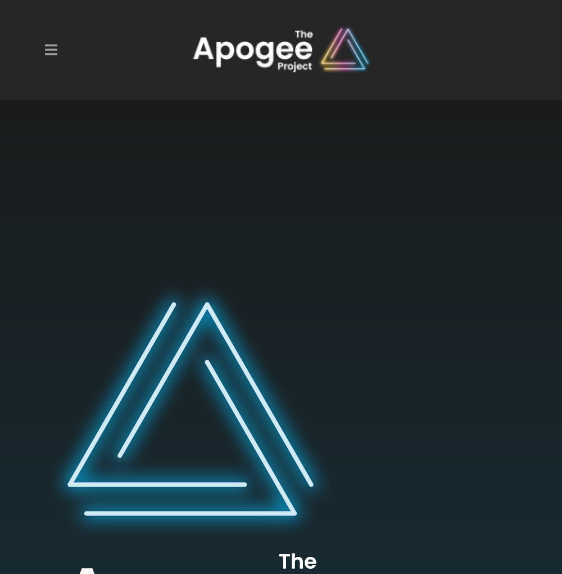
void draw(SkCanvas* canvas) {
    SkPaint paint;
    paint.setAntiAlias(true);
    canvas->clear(0xFFFFFFFF);
    paint.setColor(0xFF262626);
    canvas->drawRect(SkRect::MakeXYWH(0, 0, 562, 100), paint);
    canvas->drawImageRect(SkImages::DeferredFromEncodedData(SkData::MakeFromFileName("img1.png")), SkRect::MakeXYWH(45, 44, 13, 12), SkSamplingOptions());
    canvas->drawImageRect(SkImages::DeferredFromEncodedData(SkData::MakeFromFileName("img2.png")), SkRect::MakeXYWH(192, 26, 180, 47), SkSamplingOptions());
    {
        const SkColor colors[] = {0xFF1B1B1B, 0xFF143F4F};
        const float stops[] = {0, 1};
        const SkPoint ends[] = {{281, 100}, {281, 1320}};
        paint.setShader(SkGradientShader::MakeLinear(ends, colors, stops, 2, SkTileMode::kClamp));
        paint.setAlpha(255);
    }
    canvas->drawRect(SkRect::MakeXYWH(0, 100, 562, 474), paint);
    canvas->drawImageRect(SkImages::DeferredFromEncodedData(SkData::MakeFromFileName("img3.png")), SkRect::MakeXYWH(51, 286, 279, 288), SkSamplingOptions());
}
